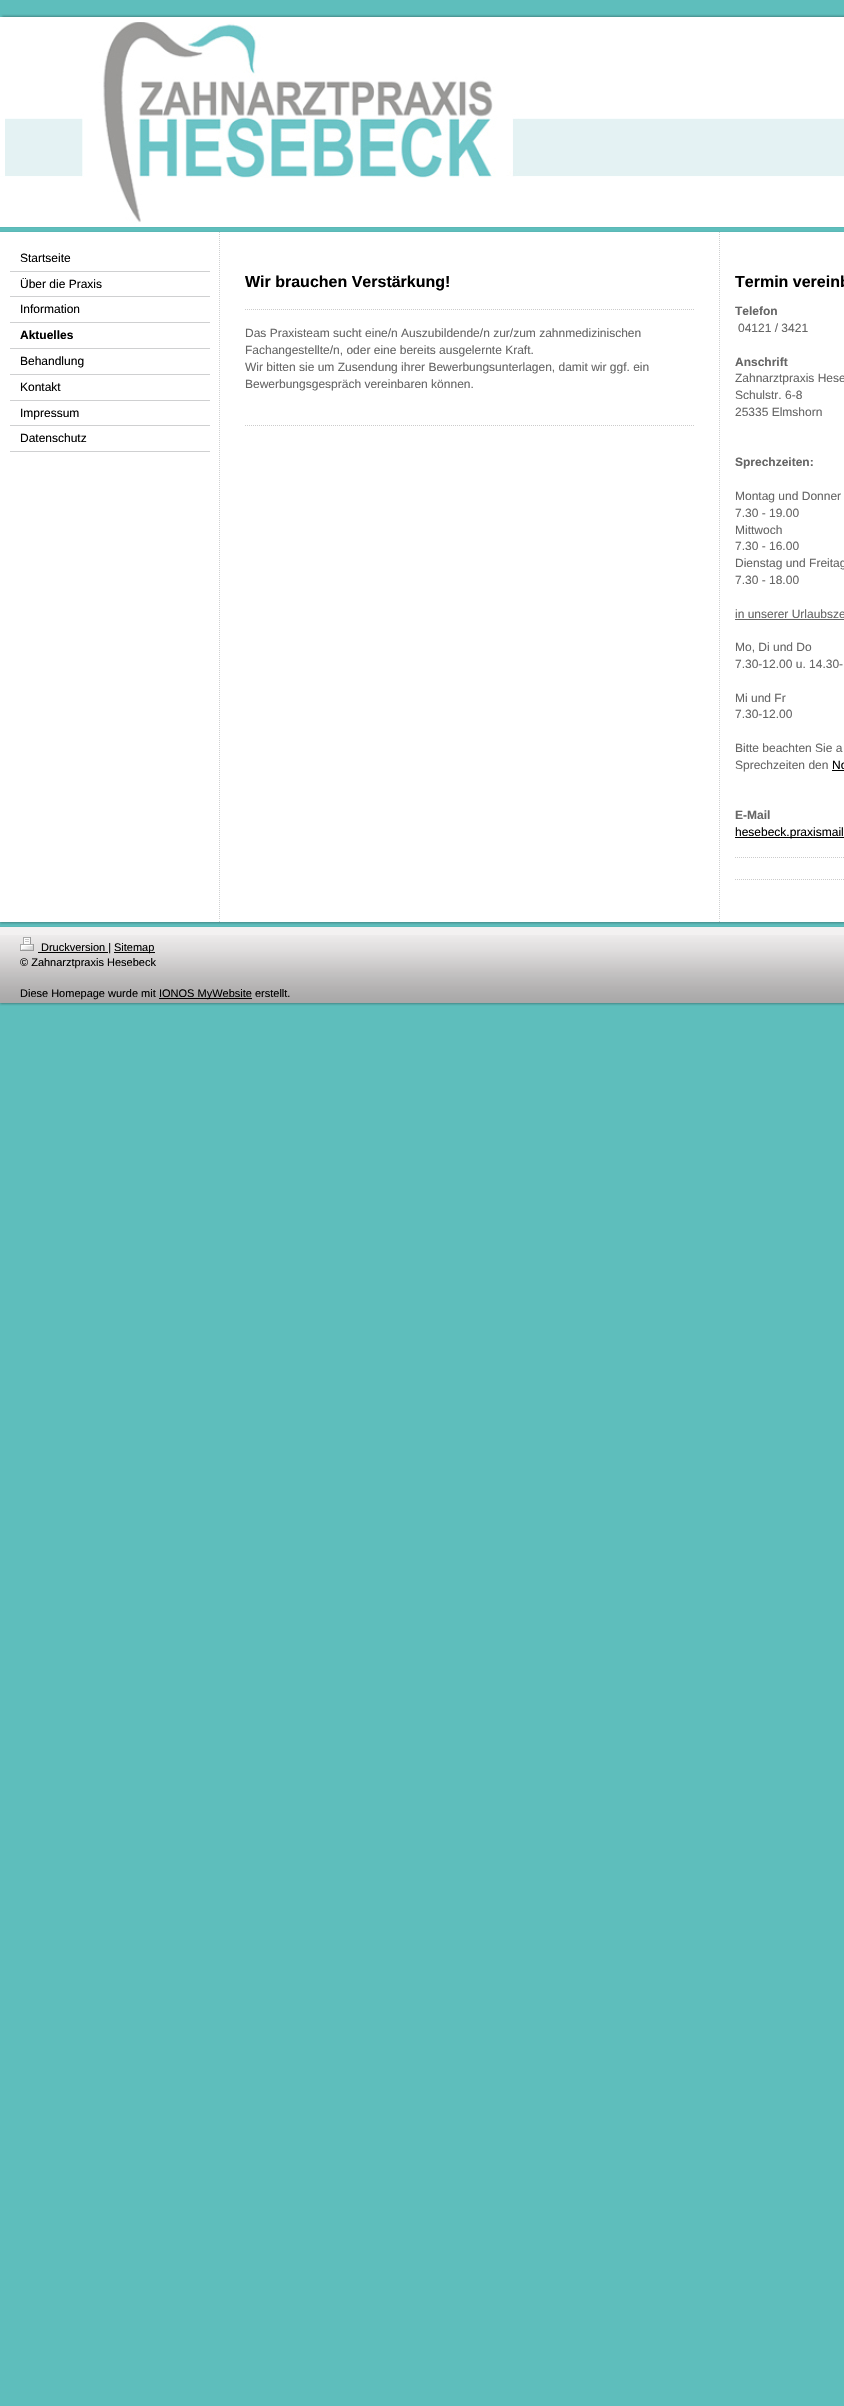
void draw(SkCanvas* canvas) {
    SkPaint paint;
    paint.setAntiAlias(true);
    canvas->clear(0xFF5EBEBC);
    canvas->drawImageRect(SkImages::DeferredFromEncodedData(SkData::MakeFromFileName("img1.png")), SkRect::MakeXYWH(0, 14, 844, 8), SkSamplingOptions());
    canvas->drawImageRect(SkImages::DeferredFromEncodedData(SkData::MakeFromFileName("img2.png")), SkRect::MakeXYWH(0, 22, 844, 205), SkSamplingOptions());
    paint.setColor(0xFFFFFFFF);
    canvas->drawRect(SkRect::MakeXYWH(0, 17, 5, 159), paint);
    paint.setColor(0xFF5BB8B6);
    canvas->drawRect(SkRect::MakeXYWH(0, 227, 844, 1), paint);
    canvas->drawImageRect(SkImages::DeferredFromEncodedData(SkData::MakeFromFileName("img3.png")), SkRect::MakeXYWH(0, 231, 844, 5), SkSamplingOptions());
    canvas->drawImageRect(SkImages::DeferredFromEncodedData(SkData::MakeFromFileName("img4.png")), SkRect::MakeXYWH(0, 920, 844, 5), SkSamplingOptions());
    canvas->drawImageRect(SkImages::DeferredFromEncodedData(SkData::MakeFromFileName("img5.png")), SkRect::MakeXYWH(0, 236, 844, 684), SkSamplingOptions());
    paint.setColor(0xFFCFD0D1);
    canvas->drawRect(SkRect::MakeXYWH(10, 271, 200, 1), paint);
    SkFont font1(fontMgr->matchFamilyStyle("Liberation Sans", SkFontStyle::Normal()), 12);
    font1.setSubpixel(true);
    paint.setColor(0xFF000000);
    canvas->drawString("Startseite", 20, 262, font1, paint);
    paint.setColor(0xFFCFD0D1);
    canvas->drawRect(SkRect::MakeXYWH(10, 296, 200, 1), paint);
    paint.setColor(0xFF000000);
    canvas->drawString("Über die Praxis", 20, 288, font1, paint);
    paint.setColor(0xFFCFD0D1);
    canvas->drawRect(SkRect::MakeXYWH(10, 322, 200, 1), paint);
    paint.setColor(0xFF000000);
    canvas->drawString("Information", 20, 313, font1, paint);
    paint.setColor(0xFFCFD0D1);
    canvas->drawRect(SkRect::MakeXYWH(10, 348, 200, 1), paint);
    SkFont font2(fontMgr->matchFamilyStyle("Liberation Sans", SkFontStyle::Bold()), 12);
    font2.setSubpixel(true);
    paint.setColor(0xFF000000);
    canvas->drawString("Aktuelles", 20, 339, font2, paint);
    paint.setColor(0xFFCFD0D1);
    canvas->drawRect(SkRect::MakeXYWH(10, 374, 200, 1), paint);
    paint.setColor(0xFF000000);
    canvas->drawString("Behandlung", 20, 365, font1, paint);
    paint.setColor(0xFFCFD0D1);
    canvas->drawRect(SkRect::MakeXYWH(10, 400, 200, 1), paint);
    paint.setColor(0xFF000000);
    canvas->drawString("Kontakt", 20, 391, font1, paint);
    paint.setColor(0xFFCFD0D1);
    canvas->drawRect(SkRect::MakeXYWH(10, 425, 200, 1), paint);
    paint.setColor(0xFF000000);
    canvas->drawString("Impressum", 20, 417, font1, paint);
    paint.setColor(0xFFCFD0D1);
    canvas->drawRect(SkRect::MakeXYWH(10, 451, 200, 1), paint);
    paint.setColor(0xFF000000);
    canvas->drawString("Datenschutz", 20, 442, font1, paint);
    SkFont font3(fontMgr->matchFamilyStyle("Liberation Sans", SkFontStyle::Bold()), 16);
    font3.setSubpixel(true);
    canvas->drawString("Wir brauchen Verstärkung!", 245, 287, font3, paint);
    paint.setStyle(SkPaint::kStroke_Style);
    paint.setStrokeWidth(1);
    paint.setColor(0xFFCCCCCC);
    paint.setPathEffect(SkDashPathEffect::Make({{1, 1}}, 0));
    canvas->drawPath(SkPathBuilder().moveTo(245, 309.5f).lineTo(695, 309.5f).detach(), paint);
    paint.setPathEffect(nullptr);
    paint.setStyle(SkPaint::kFill_Style);
    paint.setColor(0xFF666666);
    canvas->drawString("Das Praxisteam sucht eine/n Auszubildende/n zur/zum zahnmedizinischen", 245, 337, font1, paint);
    canvas->drawString("Fachangestellte/n, oder eine bereits ausgelernte Kraft.", 245, 354, font1, paint);
    canvas->drawString("Wir bitten sie um Zusendung ihrer Bewerbungsunterlagen, damit wir ggf. ein", 245, 371, font1, paint);
    canvas->drawString("Bewerbungsgespräch vereinbaren können.", 245, 388, font1, paint);
    paint.setStyle(SkPaint::kStroke_Style);
    paint.setColor(0xFFCCCCCC);
    paint.setPathEffect(SkDashPathEffect::Make({{1, 1}}, 0));
    canvas->drawPath(SkPathBuilder().moveTo(245, 425.5f).lineTo(695, 425.5f).detach(), paint);
    paint.setPathEffect(nullptr);
    paint.setStyle(SkPaint::kFill_Style);
    paint.setColor(0xFF000000);
    canvas->drawString("Termin vereinb", 735, 287, font3, paint);
    paint.setColor(0xFF666666);
    canvas->drawString("Telefon", 735, 315, font2, paint);
    canvas->drawString("04121 / 3421", 738, 332, font1, paint);
    canvas->drawString("Anschrift", 735, 366, font2, paint);
    canvas->drawString("Zahnarztpraxis Hese", 735, 382, font1, paint);
    canvas->drawString("Schulstr. 6-8", 735, 399, font1, paint);
    canvas->drawString("25335 Elmshorn", 735, 416, font1, paint);
    canvas->drawString("Sprechzeiten:", 735, 466, font2, paint);
    canvas->drawString("Montag und Donner", 735, 500, font1, paint);
    canvas->drawString("7.30 - 19.00", 735, 517, font1, paint);
    canvas->drawString("Mittwoch", 735, 534, font1, paint);
    canvas->drawString("7.30 - 16.00", 735, 550, font1, paint);
    canvas->drawString("Dienstag und Freitag", 735, 567, font1, paint);
    canvas->drawString("7.30 - 18.00", 735, 584, font1, paint);
    canvas->drawString("in unserer Urlaubsze", 735, 618, font1, paint);
    canvas->drawRect(SkRect::MakeXYWH(735, 619, 109, 1), paint);
    canvas->drawString("Mo, Di und Do", 735, 651, font1, paint);
    canvas->drawString("7.30-12.00 u. 14.30-", 735, 668, font1, paint);
    canvas->drawString("Mi und Fr", 735, 702, font1, paint);
    canvas->drawString("7.30-12.00", 735, 718, font1, paint);
    canvas->drawString("Bitte beachten Sie a", 735, 752, font1, paint);
    canvas->drawString("Sprechzeiten den", 735, 769, font1, paint);
    paint.setColor(0xFF000000);
    canvas->drawString("No", 832, 769, font1, paint);
    canvas->drawRect(SkRect::MakeXYWH(832, 770, 12, 1), paint);
    paint.setColor(0xFF666666);
    canvas->drawString("E-Mail", 735, 819, font2, paint);
    paint.setColor(0xFF000000);
    canvas->drawRect(SkRect::MakeXYWH(735, 837, 109, 1), paint);
    canvas->drawString("hesebeck.praxismail", 735, 836, font1, paint);
    paint.setStyle(SkPaint::kStroke_Style);
    paint.setColor(0xFFCCCCCC);
    paint.setPathEffect(SkDashPathEffect::Make({{1, 1}}, 0));
    canvas->drawPath(SkPathBuilder().moveTo(735, 857.5f).lineTo(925, 857.5f).detach(), paint);
    paint.setPathEffect(nullptr);
    paint.setPathEffect(SkDashPathEffect::Make({{1, 1}}, 0));
    canvas->drawPath(SkPathBuilder().moveTo(735, 879.5f).lineTo(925, 879.5f).detach(), paint);
    paint.setPathEffect(nullptr);
    paint.setStyle(SkPaint::kFill_Style);
    paint.setColor(0xFF5BB8B6);
    canvas->drawRect(SkRect::MakeXYWH(0, 926, 844, 1), paint);
    canvas->drawImageRect(SkImages::DeferredFromEncodedData(SkData::MakeFromFileName("img6.png")), SkRect::MakeXYWH(0, 1003, 844, 3), SkSamplingOptions());
    paint.setColor(0xFFF3F1F1);
    canvas->drawRect(SkRect::MakeXYWH(0, 927, 844, 76), paint);
    canvas->drawImageRect(SkImages::DeferredFromEncodedData(SkData::MakeFromFileName("img7.png")), SkRect::MakeXYWH(0, 935, 844, 68), SkSamplingOptions());
    canvas->drawImageRect(SkImages::DeferredFromEncodedData(SkData::MakeFromFileName("img8.png")), SkRect::MakeXYWH(20, 937, 14, 14), SkSamplingOptions());
    paint.setColor(0xFF000000);
    canvas->drawRect(SkRect::MakeXYWH(38, 952, 70, 1), paint);
    SkFont font4(fontMgr->matchFamilyStyle("Liberation Sans", SkFontStyle::Normal()), 11);
    font4.setSubpixel(true);
    canvas->drawString("Druckversion |", 41, 951, font4, paint);
    canvas->drawRect(SkRect::MakeXYWH(114, 952, 41, 1), paint);
    canvas->drawString("Sitemap", 114, 951, font4, paint);
    canvas->drawString("© Zahnarztpraxis Hesebeck", 20, 966, font4, paint);
    canvas->drawString("Diese Homepage wurde mit", 20, 997, font4, paint);
    canvas->drawRect(SkRect::MakeXYWH(159, 998, 93, 1), paint);
    canvas->drawString("IONOS MyWebsite erstellt.", 159, 997, font4, paint);
}
